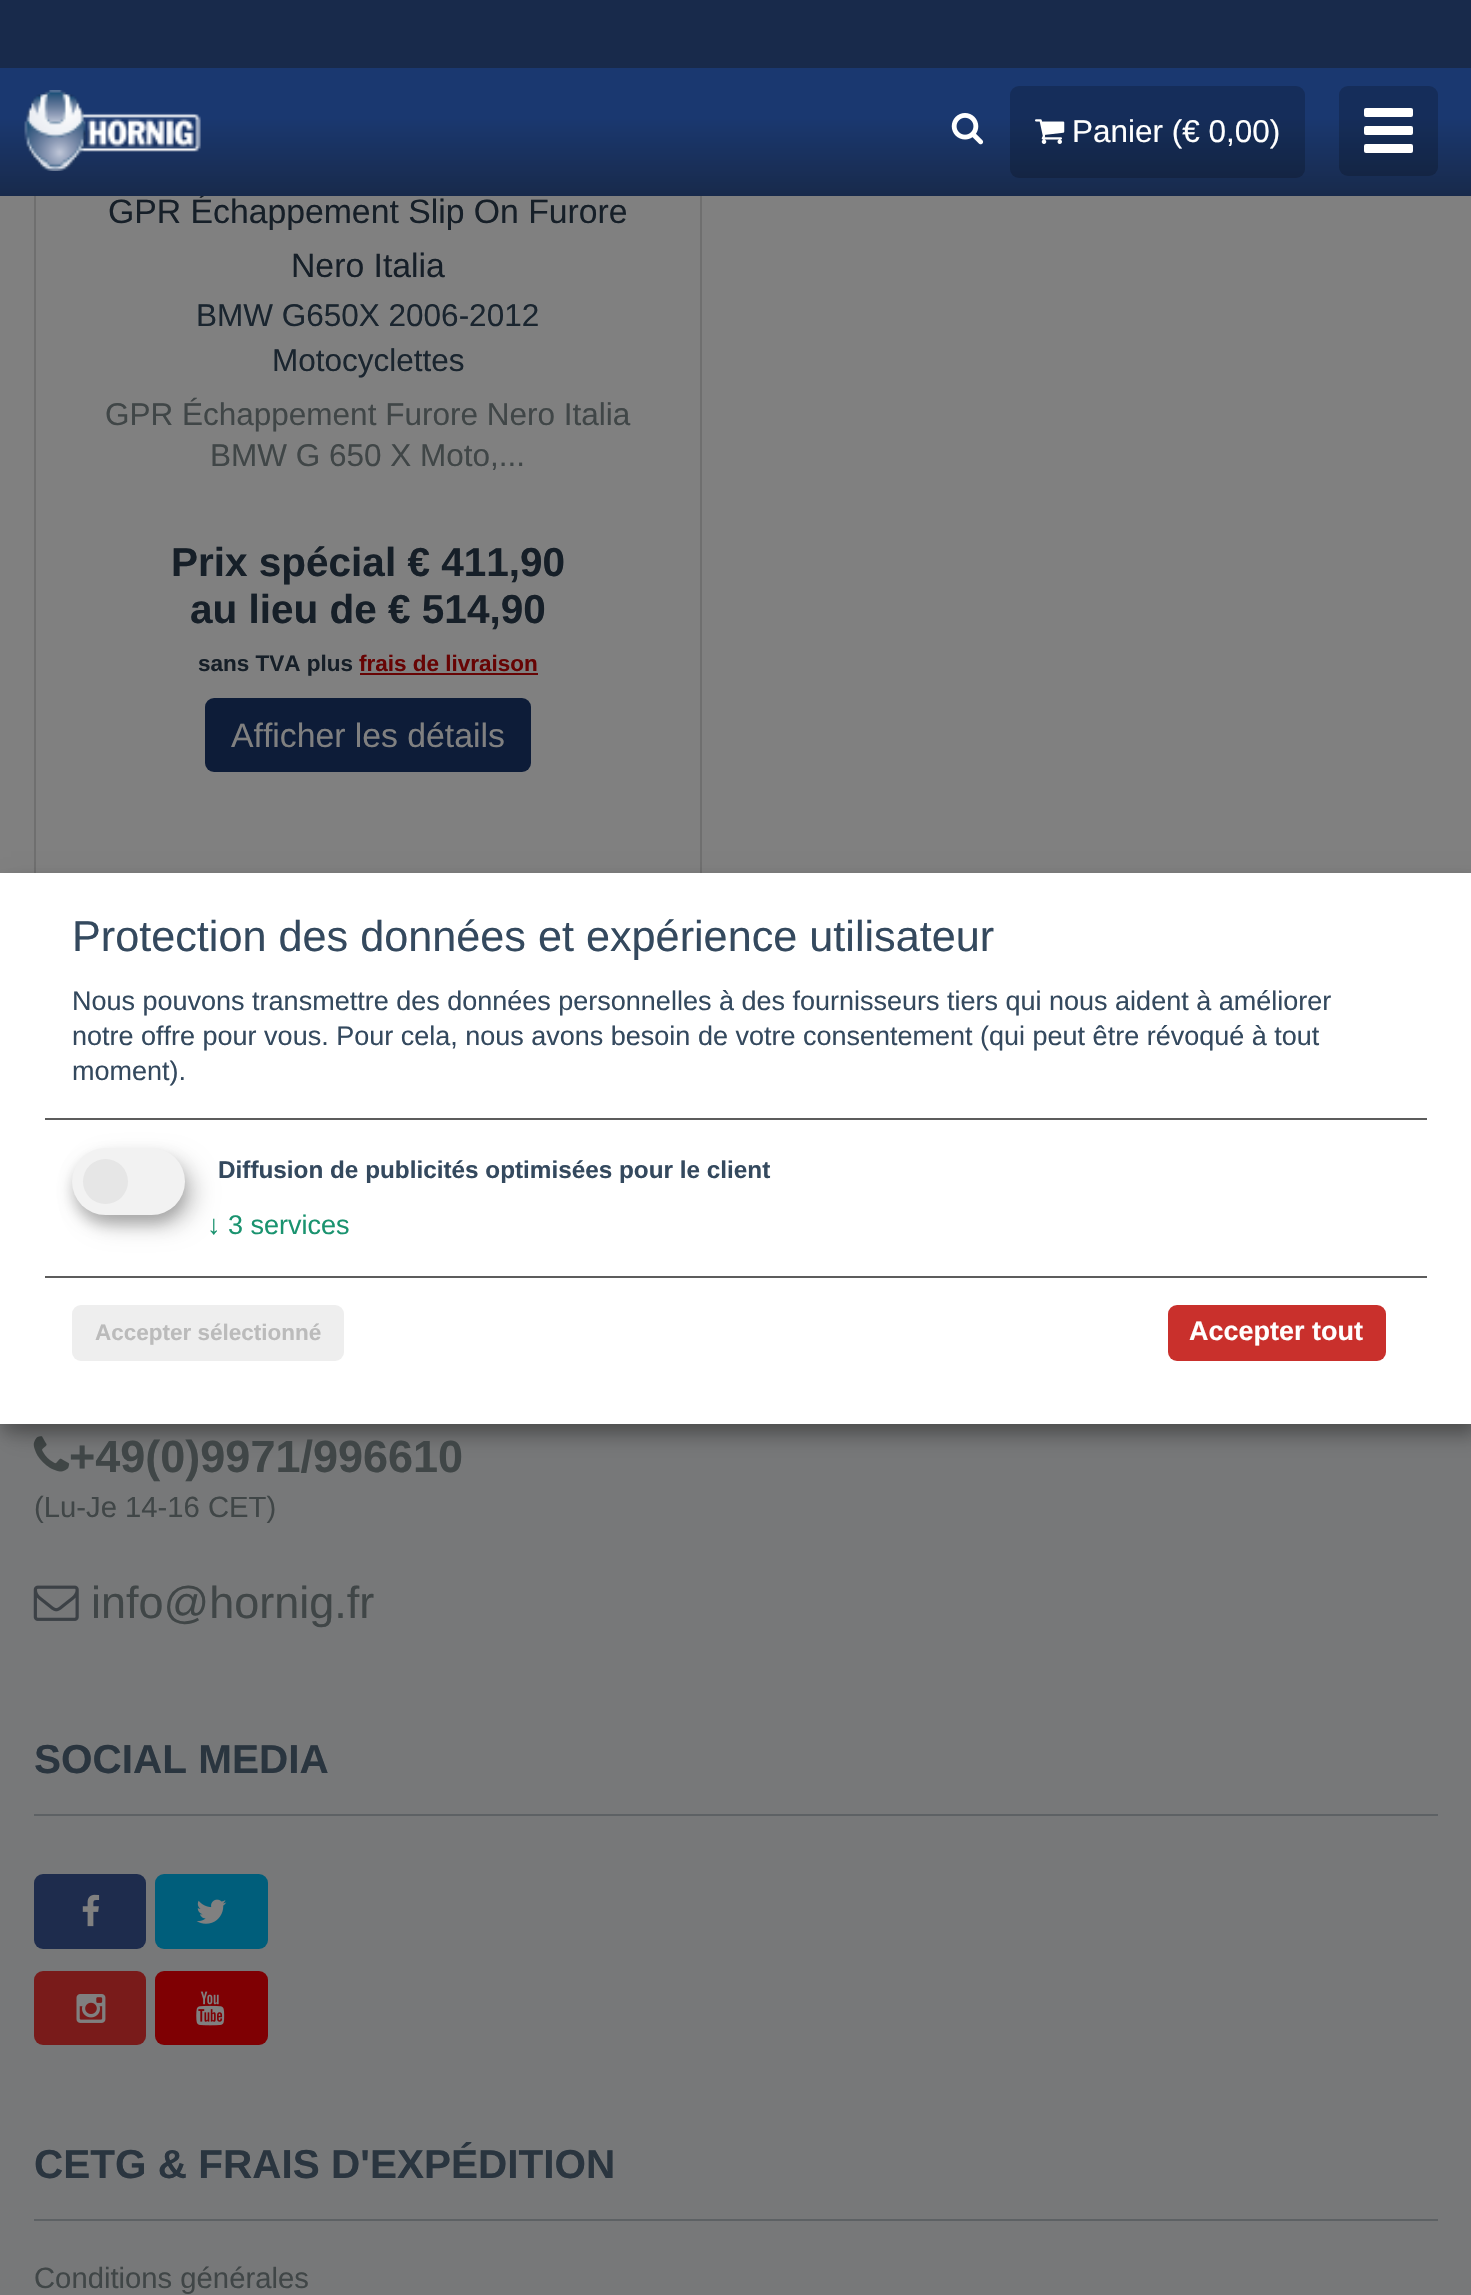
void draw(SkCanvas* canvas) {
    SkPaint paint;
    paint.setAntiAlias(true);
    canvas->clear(0xFF808080);
    paint.setStyle(SkPaint::kStroke_Style);
    paint.setStrokeWidth(2);
    paint.setColor(0xFF6F6F6F);
    canvas->drawRect(SkRect::MakeXYWH(35, -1, 666, 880), paint);
    SkFont font1(fontMgr->matchFamilyStyle("Liberation Sans", SkFontStyle::Normal()), 33.75f);
    font1.setSubpixel(true);
    paint.setStyle(SkPaint::kFill_Style);
    paint.setColor(0xFF161F28);
    canvas->drawString("GPR Échappement Slip On Furore", 108, 223, font1, paint);
    {
        const SkColor colors[] = {0xFF1A3870, 0xFF182A4B};
        const float stops[] = {0.6f, 1};
        const SkPoint ends[] = {{736, 0}, {736, 196}};
        paint.setShader(SkGradientShader::MakeLinear(ends, colors, stops, 2, SkTileMode::kClamp));
        paint.setAlpha(255);
    }
    canvas->drawRect(SkRect::MakeXYWH(0, 68, 1471, 128), paint);
    paint.setShader(nullptr);
    paint.setColor(0xFF182A4B);
    canvas->drawRect(SkRect::MakeXYWH(0, 0, 1471, 68), paint);
    canvas->drawImageRect(SkImages::DeferredFromEncodedData(SkData::MakeFromFileName("img1.png")), SkRect::MakeXYWH(24, 90, 177, 81), SkSamplingOptions());
    canvas->drawImageRect(SkImages::DeferredFromEncodedData(SkData::MakeFromFileName("img2.png")), SkRect::MakeXYWH(951, 113, 33, 32), SkSamplingOptions());
    paint.setColor(0x33000000);
    canvas->drawRoundRect(SkRect::MakeXYWH(1010, 86, 295, 92), 9, 9, paint);
    canvas->drawImageRect(SkImages::DeferredFromEncodedData(SkData::MakeFromFileName("img3.png")), SkRect::MakeXYWH(1035, 119, 30, 25), SkSamplingOptions());
    SkFont font2(fontMgr->matchFamilyStyle("Liberation Sans", SkFontStyle::Normal()), 31.5f);
    font2.setSubpixel(true);
    paint.setColor(0xFFFFFFFF);
    canvas->drawString("Panier (€ 0,00)", 1072, 142, font2, paint);
    paint.setColor(0x33000000);
    canvas->drawRoundRect(SkRect::MakeXYWH(1339, 86, 99, 90), 9, 9, paint);
    paint.setColor(0xFFFFFFFF);
    canvas->drawRoundRect(SkRect::MakeXYWH(1364, 108, 49, 9), 2, 2, paint);
    canvas->drawRoundRect(SkRect::MakeXYWH(1364, 126, 49, 9), 2, 2, paint);
    canvas->drawRoundRect(SkRect::MakeXYWH(1364, 144, 49, 9), 2, 2, paint);
    paint.setColor(0xFF161F28);
    canvas->drawString("Nero Italia", 291, 277, font1, paint);
    paint.setColor(0xFF1A252F);
    canvas->drawString("BMW G650X 2006-2012", 196, 326, font2, paint);
    canvas->drawString("Motocyclettes", 272, 371, font2, paint);
    paint.setColor(0xFF404647);
    canvas->drawString("GPR Échappement Furore Nero Italia", 105, 425, font2, paint);
    canvas->drawString("BMW G 650 X Moto,...", 210, 466, font2, paint);
    SkFont font3(fontMgr->matchFamilyStyle("Liberation Sans", SkFontStyle::Bold()), 40.5f);
    font3.setSubpixel(true);
    paint.setColor(0xFF161F28);
    canvas->drawString("Prix spécial € 411,90", 171, 576, font3, paint);
    canvas->drawString("au lieu de € 514,90", 190, 623, font3, paint);
    SkFont font4(fontMgr->matchFamilyStyle("Liberation Sans", SkFontStyle::Bold()), 22.5f);
    font4.setSubpixel(true);
    canvas->drawString("sans TVA plus", 198, 671, font4, paint);
    paint.setColor(0xFF670404);
    canvas->drawString("frais de livraison", 359, 671, font4, paint);
    canvas->drawRect(SkRect::MakeXYWH(360, 673, 178, 2), paint);
    paint.setColor(0xFF0D1C38);
    canvas->drawRoundRect(SkRect::MakeXYWH(205, 698, 326, 74), 9, 9, paint);
    paint.setColor(0xFF808080);
    canvas->drawString("Afficher les détails", 231, 747, font1, paint);
    paint.setColor(0xFF777879);
    canvas->drawRect(SkRect::MakeXYWH(0, 1424, 1471, 871), paint);
    canvas->drawImageRect(SkImages::DeferredFromEncodedData(SkData::MakeFromFileName("img4.png")), SkRect::MakeXYWH(33, 1436, 37, 36), SkSamplingOptions());
    paint.setColor(0x30000000);
    paint.setMaskFilter(SkMaskFilter::MakeBlur(kNormal_SkBlurStyle, 11));
    canvas->drawRect(SkRect::MakeXYWH(11, 884, 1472, 552), paint);
    paint.setMaskFilter(nullptr);
    paint.setColor(0x33000000);
    paint.setMaskFilter(SkMaskFilter::MakeBlur(kNormal_SkBlurStyle, 7));
    canvas->drawRect(SkRect::MakeXYWH(0, 882, 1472, 551), paint);
    paint.setMaskFilter(nullptr);
    paint.setColor(0xFFFFFFFF);
    canvas->drawRect(SkRect::MakeXYWH(0, 873, 1471, 551), paint);
    paint.setColor(0xFF5C5C5C);
    canvas->drawRect(SkRect::MakeXYWH(45, 1118, 1382, 2), paint);
    SkFont font5(fontMgr->matchFamilyStyle("Liberation Sans", SkFontStyle::Normal()), 43.2f);
    font5.setSubpixel(true);
    paint.setColor(0xFF34495E);
    canvas->drawString("Protection des données et expérience utilisateur", 72, 951, font5, paint);
    SkFont font6(fontMgr->matchFamilyStyle("Liberation Sans", SkFontStyle::Normal()), 27);
    font6.setSubpixel(true);
    canvas->drawString("Nous pouvons transmettre des données personnelles à des fournisseurs tiers qui nous aident à améliorer", 72, 1010, font6, paint);
    canvas->drawString("notre offre pour vous. Pour cela, nous avons besoin de votre consentement (qui peut être révoqué à tout", 72, 1045, font6, paint);
    canvas->drawString("moment).", 72, 1080, font6, paint);
    paint.setColor(0x30000000);
    paint.setMaskFilter(SkMaskFilter::MakeBlur(kNormal_SkBlurStyle, 11));
    canvas->drawRoundRect(SkRect::MakeXYWH(83, 1159, 113, 67), 33.5f, 33.5f, paint);
    paint.setMaskFilter(nullptr);
    paint.setColor(0x33000000);
    paint.setMaskFilter(SkMaskFilter::MakeBlur(kNormal_SkBlurStyle, 7));
    canvas->drawRoundRect(SkRect::MakeXYWH(72, 1157, 113, 67), 33.5f, 33.5f, paint);
    paint.setMaskFilter(nullptr);
    paint.setColor(0xFFF2F2F2);
    canvas->drawRoundRect(SkRect::MakeXYWH(72, 1148, 113, 67), 33.5f, 33.5f, paint);
    paint.setColor(0xFFE6E6E6);
    canvas->drawCircle(105.5f, 1181.5f, 22.5f, paint);
    SkFont font7(fontMgr->matchFamilyStyle("Liberation Sans", SkFontStyle::Bold()), 24.3f);
    font7.setSubpixel(true);
    paint.setColor(0xFF34495E);
    canvas->drawString("Diffusion de publicités optimisées pour le client", 218, 1178, font7, paint);
    paint.setColor(0xFF1A936F);
    canvas->drawString("↓ 3 services", 207, 1234, font6, paint);
    paint.setColor(0xFF5C5C5C);
    canvas->drawRect(SkRect::MakeXYWH(45, 1276, 1382, 2), paint);
    paint.setColor(0xFFEEEEEE);
    canvas->drawRoundRect(SkRect::MakeXYWH(72, 1305, 272, 56), 9, 9, paint);
    paint.setColor(0xFFBBBBBB);
    canvas->drawString("Accepter sélectionné", 95, 1340, font4, paint);
    paint.setColor(0xFFC9302C);
    canvas->drawRoundRect(SkRect::MakeXYWH(1168, 1305, 218, 56), 9, 9, paint);
    SkFont font8(fontMgr->matchFamilyStyle("Liberation Sans", SkFontStyle::Bold()), 27);
    font8.setSubpixel(true);
    paint.setColor(0xFFFFFFFF);
    canvas->drawString("Accepter tout", 1189, 1340, font8, paint);
    SkFont font9(fontMgr->matchFamilyStyle("Liberation Sans", SkFontStyle::Bold()), 45);
    font9.setSubpixel(true);
    paint.setColor(0xFF404647);
    canvas->drawString("+49(0)9971/996610", 69, 1472, font9, paint);
    SkFont font10(fontMgr->matchFamilyStyle("Liberation Sans", SkFontStyle::Normal()), 29.25f);
    font10.setSubpixel(true);
    canvas->drawString("(Lu-Je 14-16 CET)", 34, 1517, font10, paint);
    canvas->drawImageRect(SkImages::DeferredFromEncodedData(SkData::MakeFromFileName("img5.png")), SkRect::MakeXYWH(33, 1585, 46, 36), SkSamplingOptions());
    SkFont font11(fontMgr->matchFamilyStyle("Liberation Sans", SkFontStyle::Normal()), 45);
    font11.setSubpixel(true);
    canvas->drawString("info@hornig.fr", 91, 1618, font11, paint);
    paint.setColor(0xFF5D6164);
    canvas->drawRect(SkRect::MakeXYWH(34, 1814, 1404, 2), paint);
    paint.setColor(0xFF2A353F);
    canvas->drawString("SOCIAL MEDIA", 34, 1773, font3, paint);
    paint.setColor(0xFF1E2C4D);
    canvas->drawRoundRect(SkRect::MakeXYWH(34, 1874, 112, 75), 9, 9, paint);
    canvas->drawImageRect(SkImages::DeferredFromEncodedData(SkData::MakeFromFileName("img6.png")), SkRect::MakeXYWH(82, 1894, 18, 33), SkSamplingOptions());
    paint.setColor(0xFF005E7B);
    canvas->drawRoundRect(SkRect::MakeXYWH(155, 1874, 113, 75), 9, 9, paint);
    canvas->drawImageRect(SkImages::DeferredFromEncodedData(SkData::MakeFromFileName("img7.png")), SkRect::MakeXYWH(196, 1899, 31, 25), SkSamplingOptions());
    paint.setColor(0xFF791B1A);
    canvas->drawRoundRect(SkRect::MakeXYWH(34, 1971, 112, 74), 9, 9, paint);
    canvas->drawImageRect(SkImages::DeferredFromEncodedData(SkData::MakeFromFileName("img8.png")), SkRect::MakeXYWH(76, 1994, 30, 29), SkSamplingOptions());
    paint.setColor(0xFF7F0003);
    canvas->drawRoundRect(SkRect::MakeXYWH(155, 1971, 113, 74), 9, 9, paint);
    canvas->drawImageRect(SkImages::DeferredFromEncodedData(SkData::MakeFromFileName("img9.png")), SkRect::MakeXYWH(196, 1991, 29, 35), SkSamplingOptions());
    paint.setColor(0xFF5D6164);
    canvas->drawRect(SkRect::MakeXYWH(34, 2219, 1404, 2), paint);
    paint.setColor(0xFF2A353F);
    canvas->drawString("CETG & FRAIS D'EXPÉDITION", 34, 2178, font3, paint);
    paint.setColor(0xFF404647);
    canvas->drawString("Conditions générales", 34, 2288, font10, paint);
}
